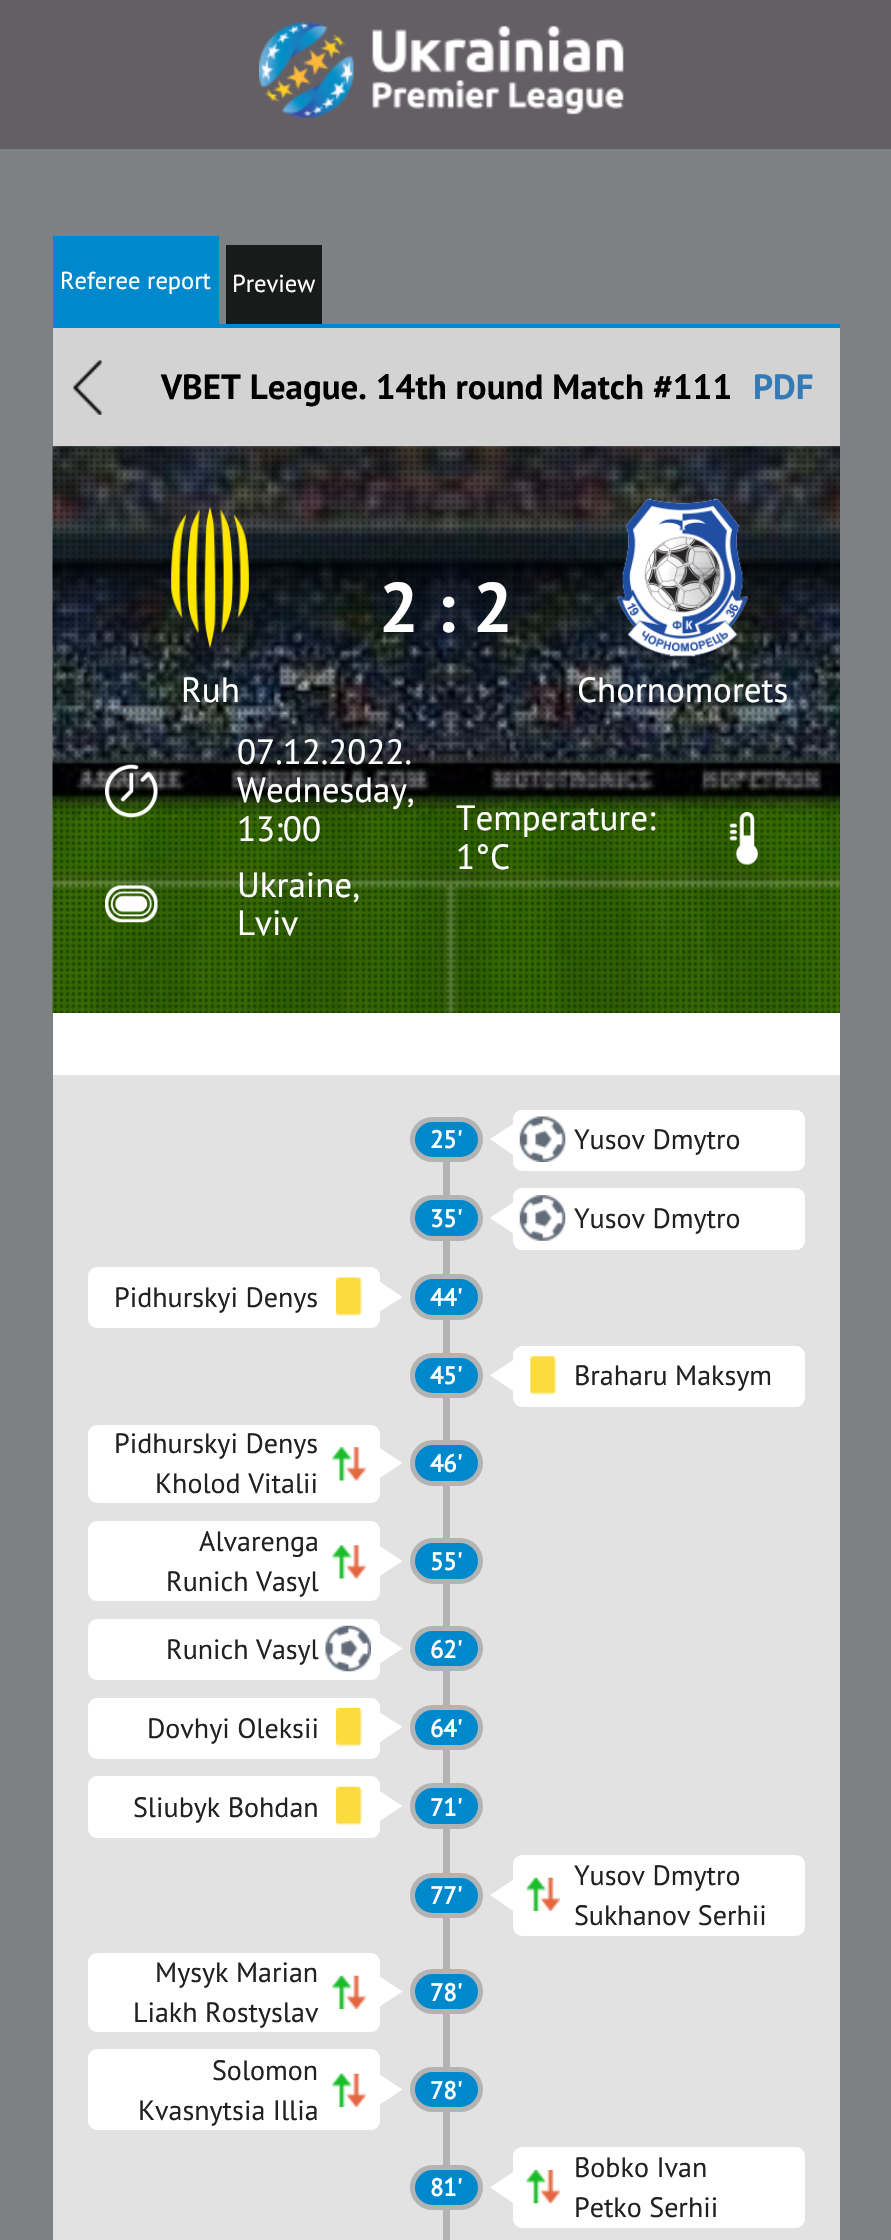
void draw(SkCanvas* canvas) {
    SkPaint paint;
    paint.setAntiAlias(true);
    canvas->clear(0xFF7D8184);
    paint.setColor(0xFF645F64);
    canvas->drawRect(SkRect::MakeXYWH(0, 0, 891, 149), paint);
    canvas->drawImageRect(SkImages::DeferredFromEncodedData(SkData::MakeFromFileName("img1.png")), SkRect::MakeXYWH(259, 22, 365, 96), SkSamplingOptions());
    paint.setColor(0xFF0088CC);
    canvas->drawRect(SkRect::MakeXYWH(53, 236, 166, 88), paint);
    SkFont font1(fontMgr->matchFamilyStyle("PT Sans", SkFontStyle::Normal()), 24.5f);
    font1.setSubpixel(true);
    paint.setColor(0xFFFFFFFF);
    canvas->drawString("Referee report", 60, 289, font1, paint);
    paint.setColor(0xFF191A1A);
    canvas->drawRect(SkRect::MakeXYWH(226, 245, 96, 79), paint);
    paint.setColor(0xFFFFFFFF);
    canvas->drawString("Preview", 232, 292, font1, paint);
    paint.setColor(0xFFD3D3D3);
    canvas->drawRect(SkRect::MakeXYWH(53, 328, 787, 118), paint);
    paint.setColor(0xFF0088CC);
    canvas->drawRect(SkRect::MakeXYWH(53, 324, 787, 4), paint);
    canvas->drawImageRect(SkImages::DeferredFromEncodedData(SkData::MakeFromFileName("img2.png")), SkRect::MakeXYWH(73, 360, 29, 55), SkSamplingOptions());
    SkFont font2(fontMgr->matchFamilyStyle("PT Sans", SkFontStyle::Bold()), 35);
    font2.setSubpixel(true);
    paint.setColor(0xFF000000);
    canvas->drawString("VBET League. 14th round Match #111", 161, 399, font2, paint);
    paint.setColor(0xFF337AB7);
    canvas->drawString("PDF", 753, 399, font2, paint);
    canvas->drawImageRect(SkImages::DeferredFromEncodedData(SkData::MakeFromFileName("img3.png")), SkRect::MakeXYWH(52, 446, 788, 568), SkSamplingOptions());
    SkFont font3(fontMgr->matchFamilyStyle("PT Sans", SkFontStyle::Bold()), 70);
    font3.setSubpixel(true);
    paint.setColor(0xFFFFFFFF);
    canvas->drawString("2 : 2", 379, 632, font3, paint);
    canvas->drawImageRect(SkImages::DeferredFromEncodedData(SkData::MakeFromFileName("img4.png")), SkRect::MakeXYWH(171, 507, 78, 141), SkSamplingOptions());
    SkFont font4(fontMgr->matchFamilyStyle("PT Sans", SkFontStyle::Normal()), 35);
    font4.setSubpixel(true);
    canvas->drawString("Ruh", 181, 702, font4, paint);
    canvas->drawImageRect(SkImages::DeferredFromEncodedData(SkData::MakeFromFileName("img5.png")), SkRect::MakeXYWH(617, 498, 131, 159), SkSamplingOptions());
    canvas->drawString("Chornomorets", 577, 702, font4, paint);
    canvas->drawImageRect(SkImages::DeferredFromEncodedData(SkData::MakeFromFileName("img6.png")), SkRect::MakeXYWH(105, 764, 53, 54), SkSamplingOptions());
    canvas->drawString("07.12.2022.", 237, 764, font4, paint);
    canvas->drawString("Wednesday,", 237, 802, font4, paint);
    canvas->drawString("13:00", 237, 841, font4, paint);
    canvas->drawImageRect(SkImages::DeferredFromEncodedData(SkData::MakeFromFileName("img7.png")), SkRect::MakeXYWH(105, 885, 53, 38), SkSamplingOptions());
    canvas->drawString("Ukraine,", 237, 897, font4, paint);
    canvas->drawString("Lviv", 237, 935, font4, paint);
    canvas->drawImageRect(SkImages::DeferredFromEncodedData(SkData::MakeFromFileName("img8.png")), SkRect::MakeXYWH(729, 812, 29, 53), SkSamplingOptions());
    canvas->drawString("Temperature:", 456, 830, font4, paint);
    canvas->drawString("1°C", 456, 869, font4, paint);
    canvas->drawRect(SkRect::MakeXYWH(53, 1013, 787, 62), paint);
    paint.setColor(0xFFE2E2E2);
    canvas->drawRect(SkRect::MakeXYWH(53, 1075, 787, 1165), paint);
    paint.setColor(0xFF0088CC);
    canvas->drawRoundRect(SkRect::MakeXYWH(412.5f, 1119.5f, 68, 40), 20, 20, paint);
    paint.setStyle(SkPaint::kStroke_Style);
    paint.setStrokeWidth(5);
    paint.setColor(0xFFB3B3B3);
    canvas->drawRoundRect(SkRect::MakeXYWH(412.5f, 1119.5f, 68, 40), 20, 20, paint);
    SkFont font5(fontMgr->matchFamilyStyle("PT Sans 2", SkFontStyle::Bold()), 24.5f);
    font5.setSubpixel(true);
    paint.setStyle(SkPaint::kFill_Style);
    paint.setColor(0xFFFFFFFF);
    canvas->drawString("25'", 430, 1148, font5, paint);
    canvas->drawRoundRect(SkRect::MakeXYWH(513, 1110, 292, 61), 9, 9, paint);
    canvas->drawPath(SkPathBuilder().moveTo(516, 1122).lineTo(516, 1157).lineTo(490, 1139).close().detach(), paint);
    canvas->drawImageRect(SkImages::DeferredFromEncodedData(SkData::MakeFromFileName("img9.png")), SkRect::MakeXYWH(519, 1116, 47, 46), SkSamplingOptions());
    SkFont font6(fontMgr->matchFamilyStyle("PT Sans", SkFontStyle::Normal()), 28);
    font6.setSubpixel(true);
    paint.setColor(0xFF212121);
    canvas->drawString("Yusov Dmytro", 574, 1149, font6, paint);
    paint.setColor(0xFFB3B3B3);
    canvas->drawRect(SkRect::MakeXYWH(443, 1162, 7, 1078), paint);
    paint.setColor(0xFF0088CC);
    canvas->drawRoundRect(SkRect::MakeXYWH(412.5f, 1197.5f, 68, 41), 20.5f, 20.5f, paint);
    paint.setStyle(SkPaint::kStroke_Style);
    paint.setColor(0xFFB3B3B3);
    canvas->drawRoundRect(SkRect::MakeXYWH(412.5f, 1197.5f, 68, 41), 20.5f, 20.5f, paint);
    paint.setStyle(SkPaint::kFill_Style);
    paint.setColor(0xFFFFFFFF);
    canvas->drawString("35'", 430, 1227, font5, paint);
    canvas->drawRoundRect(SkRect::MakeXYWH(513, 1188, 292, 62), 9, 9, paint);
    canvas->drawPath(SkPathBuilder().moveTo(516, 1200.5f).lineTo(516, 1235.5f).lineTo(490, 1218).close().detach(), paint);
    canvas->drawImageRect(SkImages::DeferredFromEncodedData(SkData::MakeFromFileName("img10.png")), SkRect::MakeXYWH(519, 1195, 47, 46), SkSamplingOptions());
    paint.setColor(0xFF212121);
    canvas->drawString("Yusov Dmytro", 574, 1228, font6, paint);
    paint.setColor(0xFFFFFFFF);
    canvas->drawRoundRect(SkRect::MakeXYWH(88, 1267, 292, 61), 9, 9, paint);
    paint.setColor(0xFF212121);
    canvas->drawString("Pidhurskyi Denys", 114, 1307, font6, paint);
    canvas->drawImageRect(SkImages::DeferredFromEncodedData(SkData::MakeFromFileName("img11.png")), SkRect::MakeXYWH(336, 1277, 27, 39), SkSamplingOptions());
    paint.setColor(0xFFFFFFFF);
    canvas->drawPath(SkPathBuilder().moveTo(376, 1314).lineTo(376, 1279).lineTo(402.5f, 1297).close().detach(), paint);
    paint.setColor(0xFF0088CC);
    canvas->drawRoundRect(SkRect::MakeXYWH(412.5f, 1276.5f, 68, 41), 20.5f, 20.5f, paint);
    paint.setStyle(SkPaint::kStroke_Style);
    paint.setColor(0xFFB3B3B3);
    canvas->drawRoundRect(SkRect::MakeXYWH(412.5f, 1276.5f, 68, 41), 20.5f, 20.5f, paint);
    paint.setStyle(SkPaint::kFill_Style);
    paint.setColor(0xFFFFFFFF);
    canvas->drawString("44'", 430, 1306, font5, paint);
    paint.setColor(0xFF0088CC);
    canvas->drawRoundRect(SkRect::MakeXYWH(412.5f, 1355.5f, 68, 40), 20, 20, paint);
    paint.setStyle(SkPaint::kStroke_Style);
    paint.setColor(0xFFB3B3B3);
    canvas->drawRoundRect(SkRect::MakeXYWH(412.5f, 1355.5f, 68, 40), 20, 20, paint);
    paint.setStyle(SkPaint::kFill_Style);
    paint.setColor(0xFFFFFFFF);
    canvas->drawString("45'", 430, 1384, font5, paint);
    canvas->drawRoundRect(SkRect::MakeXYWH(513, 1346, 292, 61), 9, 9, paint);
    canvas->drawPath(SkPathBuilder().moveTo(516, 1358).lineTo(516, 1393).lineTo(490, 1375.5f).close().detach(), paint);
    canvas->drawImageRect(SkImages::DeferredFromEncodedData(SkData::MakeFromFileName("img12.png")), SkRect::MakeXYWH(530, 1356, 27, 39), SkSamplingOptions());
    paint.setColor(0xFF212121);
    canvas->drawString("Braharu Maksym", 574, 1385, font6, paint);
    paint.setColor(0xFFFFFFFF);
    canvas->drawRoundRect(SkRect::MakeXYWH(88, 1425, 292, 78), 9, 9, paint);
    paint.setColor(0xFF212121);
    canvas->drawString("Pidhurskyi Denys", 114, 1453, font6, paint);
    canvas->drawString("Kholod Vitalii", 155, 1493, font6, paint);
    canvas->drawImageRect(SkImages::DeferredFromEncodedData(SkData::MakeFromFileName("img13.png")), SkRect::MakeXYWH(332, 1447, 34, 34), SkSamplingOptions());
    paint.setColor(0xFFFFFFFF);
    canvas->drawPath(SkPathBuilder().moveTo(376, 1480.5f).lineTo(376, 1445.5f).lineTo(402.5f, 1463).close().detach(), paint);
    paint.setColor(0xFF0088CC);
    canvas->drawRoundRect(SkRect::MakeXYWH(412.5f, 1442.5f, 68, 41), 20.5f, 20.5f, paint);
    paint.setStyle(SkPaint::kStroke_Style);
    paint.setColor(0xFFB3B3B3);
    canvas->drawRoundRect(SkRect::MakeXYWH(412.5f, 1442.5f, 68, 41), 20.5f, 20.5f, paint);
    paint.setStyle(SkPaint::kFill_Style);
    paint.setColor(0xFFFFFFFF);
    canvas->drawString("46'", 430, 1472, font5, paint);
    canvas->drawRoundRect(SkRect::MakeXYWH(88, 1521, 292, 80), 9, 9, paint);
    paint.setColor(0xFF212121);
    canvas->drawString("Alvarenga", 199, 1551, font6, paint);
    canvas->drawString("Runich Vasyl", 166, 1591, font6, paint);
    canvas->drawImageRect(SkImages::DeferredFromEncodedData(SkData::MakeFromFileName("img13.png")), SkRect::MakeXYWH(332, 1545, 34, 34), SkSamplingOptions());
    paint.setColor(0xFFFFFFFF);
    canvas->drawPath(SkPathBuilder().moveTo(376, 1578.5f).lineTo(376, 1543.5f).lineTo(402.5f, 1561).close().detach(), paint);
    paint.setColor(0xFF0088CC);
    canvas->drawRoundRect(SkRect::MakeXYWH(412.5f, 1540.5f, 68, 41), 20.5f, 20.5f, paint);
    paint.setStyle(SkPaint::kStroke_Style);
    paint.setColor(0xFFB3B3B3);
    canvas->drawRoundRect(SkRect::MakeXYWH(412.5f, 1540.5f, 68, 41), 20.5f, 20.5f, paint);
    paint.setStyle(SkPaint::kFill_Style);
    paint.setColor(0xFFFFFFFF);
    canvas->drawString("55'", 430, 1570, font5, paint);
    canvas->drawRoundRect(SkRect::MakeXYWH(88, 1619, 292, 61), 9, 9, paint);
    paint.setColor(0xFF212121);
    canvas->drawString("Runich Vasyl", 166, 1659, font6, paint);
    canvas->drawImageRect(SkImages::DeferredFromEncodedData(SkData::MakeFromFileName("img14.png")), SkRect::MakeXYWH(325, 1625, 46, 47), SkSamplingOptions());
    paint.setColor(0xFFFFFFFF);
    canvas->drawPath(SkPathBuilder().moveTo(376, 1666).lineTo(376, 1631).lineTo(402.5f, 1648.5f).close().detach(), paint);
    paint.setColor(0xFF0088CC);
    canvas->drawRoundRect(SkRect::MakeXYWH(412.5f, 1628.5f, 68, 40), 20, 20, paint);
    paint.setStyle(SkPaint::kStroke_Style);
    paint.setColor(0xFFB3B3B3);
    canvas->drawRoundRect(SkRect::MakeXYWH(412.5f, 1628.5f, 68, 40), 20, 20, paint);
    paint.setStyle(SkPaint::kFill_Style);
    paint.setColor(0xFFFFFFFF);
    canvas->drawString("62'", 430, 1658, font5, paint);
    canvas->drawRoundRect(SkRect::MakeXYWH(88, 1698, 292, 61), 9, 9, paint);
    paint.setColor(0xFF212121);
    canvas->drawString("Dovhyi Oleksii", 147, 1738, font6, paint);
    canvas->drawImageRect(SkImages::DeferredFromEncodedData(SkData::MakeFromFileName("img15.png")), SkRect::MakeXYWH(336, 1708, 27, 39), SkSamplingOptions());
    paint.setColor(0xFFFFFFFF);
    canvas->drawPath(SkPathBuilder().moveTo(376, 1745).lineTo(376, 1710).lineTo(402.5f, 1727).close().detach(), paint);
    paint.setColor(0xFF0088CC);
    canvas->drawRoundRect(SkRect::MakeXYWH(412.5f, 1707.5f, 68, 40), 20, 20, paint);
    paint.setStyle(SkPaint::kStroke_Style);
    paint.setColor(0xFFB3B3B3);
    canvas->drawRoundRect(SkRect::MakeXYWH(412.5f, 1707.5f, 68, 40), 20, 20, paint);
    paint.setStyle(SkPaint::kFill_Style);
    paint.setColor(0xFFFFFFFF);
    canvas->drawString("64'", 430, 1737, font5, paint);
    canvas->drawRoundRect(SkRect::MakeXYWH(88, 1776, 292, 62), 9, 9, paint);
    paint.setColor(0xFF212121);
    canvas->drawString("Sliubyk Bohdan", 133, 1817, font6, paint);
    canvas->drawImageRect(SkImages::DeferredFromEncodedData(SkData::MakeFromFileName("img16.png")), SkRect::MakeXYWH(336, 1786, 27, 40), SkSamplingOptions());
    paint.setColor(0xFFFFFFFF);
    canvas->drawPath(SkPathBuilder().moveTo(376, 1823.5f).lineTo(376, 1788.5f).lineTo(402.5f, 1806).close().detach(), paint);
    paint.setColor(0xFF0088CC);
    canvas->drawRoundRect(SkRect::MakeXYWH(412.5f, 1785.5f, 68, 41), 20.5f, 20.5f, paint);
    paint.setStyle(SkPaint::kStroke_Style);
    paint.setColor(0xFFB3B3B3);
    canvas->drawRoundRect(SkRect::MakeXYWH(412.5f, 1785.5f, 68, 41), 20.5f, 20.5f, paint);
    paint.setStyle(SkPaint::kFill_Style);
    paint.setColor(0xFFFFFFFF);
    canvas->drawString("71'", 430, 1816, font5, paint);
    paint.setColor(0xFF0088CC);
    canvas->drawRoundRect(SkRect::MakeXYWH(412.5f, 1875.5f, 68, 40), 20, 20, paint);
    paint.setStyle(SkPaint::kStroke_Style);
    paint.setColor(0xFFB3B3B3);
    canvas->drawRoundRect(SkRect::MakeXYWH(412.5f, 1875.5f, 68, 40), 20, 20, paint);
    paint.setStyle(SkPaint::kFill_Style);
    paint.setColor(0xFFFFFFFF);
    canvas->drawString("77'", 430, 1904, font5, paint);
    canvas->drawRoundRect(SkRect::MakeXYWH(513, 1855, 292, 81), 9, 9, paint);
    canvas->drawPath(SkPathBuilder().moveTo(516, 1878).lineTo(516, 1913).lineTo(490, 1895).close().detach(), paint);
    canvas->drawImageRect(SkImages::DeferredFromEncodedData(SkData::MakeFromFileName("img17.png")), SkRect::MakeXYWH(526, 1877, 34, 34), SkSamplingOptions());
    paint.setColor(0xFF212121);
    canvas->drawString("Yusov Dmytro", 574, 1885, font6, paint);
    canvas->drawString("Sukhanov Serhii", 574, 1925, font6, paint);
    paint.setColor(0xFFFFFFFF);
    canvas->drawRoundRect(SkRect::MakeXYWH(88, 1953, 292, 79), 9, 9, paint);
    paint.setColor(0xFF212121);
    canvas->drawString("Mysyk Marian", 155, 1982, font6, paint);
    canvas->drawString("Liakh Rostyslav", 133, 2022, font6, paint);
    canvas->drawImageRect(SkImages::DeferredFromEncodedData(SkData::MakeFromFileName("img18.png")), SkRect::MakeXYWH(332, 1975, 34, 34), SkSamplingOptions());
    paint.setColor(0xFFFFFFFF);
    canvas->drawPath(SkPathBuilder().moveTo(376, 2009).lineTo(376, 1974).lineTo(402.5f, 1991.5f).close().detach(), paint);
    paint.setColor(0xFF0088CC);
    canvas->drawRoundRect(SkRect::MakeXYWH(412.5f, 1971.5f, 68, 40), 20, 20, paint);
    paint.setStyle(SkPaint::kStroke_Style);
    paint.setColor(0xFFB3B3B3);
    canvas->drawRoundRect(SkRect::MakeXYWH(412.5f, 1971.5f, 68, 40), 20, 20, paint);
    paint.setStyle(SkPaint::kFill_Style);
    paint.setColor(0xFFFFFFFF);
    canvas->drawString("78'", 430, 2001, font5, paint);
    canvas->drawRoundRect(SkRect::MakeXYWH(88, 2049, 292, 81), 9, 9, paint);
    paint.setColor(0xFF212121);
    canvas->drawString("Solomon", 212, 2080, font6, paint);
    canvas->drawString("Kvasnytsia Illia", 138, 2120, font6, paint);
    canvas->drawImageRect(SkImages::DeferredFromEncodedData(SkData::MakeFromFileName("img19.png")), SkRect::MakeXYWH(332, 2073, 34, 34), SkSamplingOptions());
    paint.setColor(0xFFFFFFFF);
    canvas->drawPath(SkPathBuilder().moveTo(376, 2107).lineTo(376, 2072).lineTo(402.5f, 2089.5f).close().detach(), paint);
    paint.setColor(0xFF0088CC);
    canvas->drawRoundRect(SkRect::MakeXYWH(412.5f, 2069.5f, 68, 40), 20, 20, paint);
    paint.setStyle(SkPaint::kStroke_Style);
    paint.setColor(0xFFB3B3B3);
    canvas->drawRoundRect(SkRect::MakeXYWH(412.5f, 2069.5f, 68, 40), 20, 20, paint);
    paint.setStyle(SkPaint::kFill_Style);
    paint.setColor(0xFFFFFFFF);
    canvas->drawString("78'", 430, 2099, font5, paint);
    paint.setColor(0xFF0088CC);
    canvas->drawRoundRect(SkRect::MakeXYWH(412.5f, 2167.5f, 68, 40), 20, 20, paint);
    paint.setStyle(SkPaint::kStroke_Style);
    paint.setColor(0xFFB3B3B3);
    canvas->drawRoundRect(SkRect::MakeXYWH(412.5f, 2167.5f, 68, 40), 20, 20, paint);
    paint.setStyle(SkPaint::kFill_Style);
    paint.setColor(0xFFFFFFFF);
    canvas->drawString("81'", 430, 2196, font5, paint);
    canvas->drawRoundRect(SkRect::MakeXYWH(513, 2147, 292, 81), 9, 9, paint);
    canvas->drawPath(SkPathBuilder().moveTo(516, 2170).lineTo(516, 2205).lineTo(490, 2187.5f).close().detach(), paint);
    canvas->drawImageRect(SkImages::DeferredFromEncodedData(SkData::MakeFromFileName("img20.png")), SkRect::MakeXYWH(526, 2170, 34, 34), SkSamplingOptions());
    paint.setColor(0xFF212121);
    canvas->drawString("Bobko Ivan", 574, 2177, font6, paint);
    canvas->drawString("Petko Serhii", 574, 2217, font6, paint);
}
